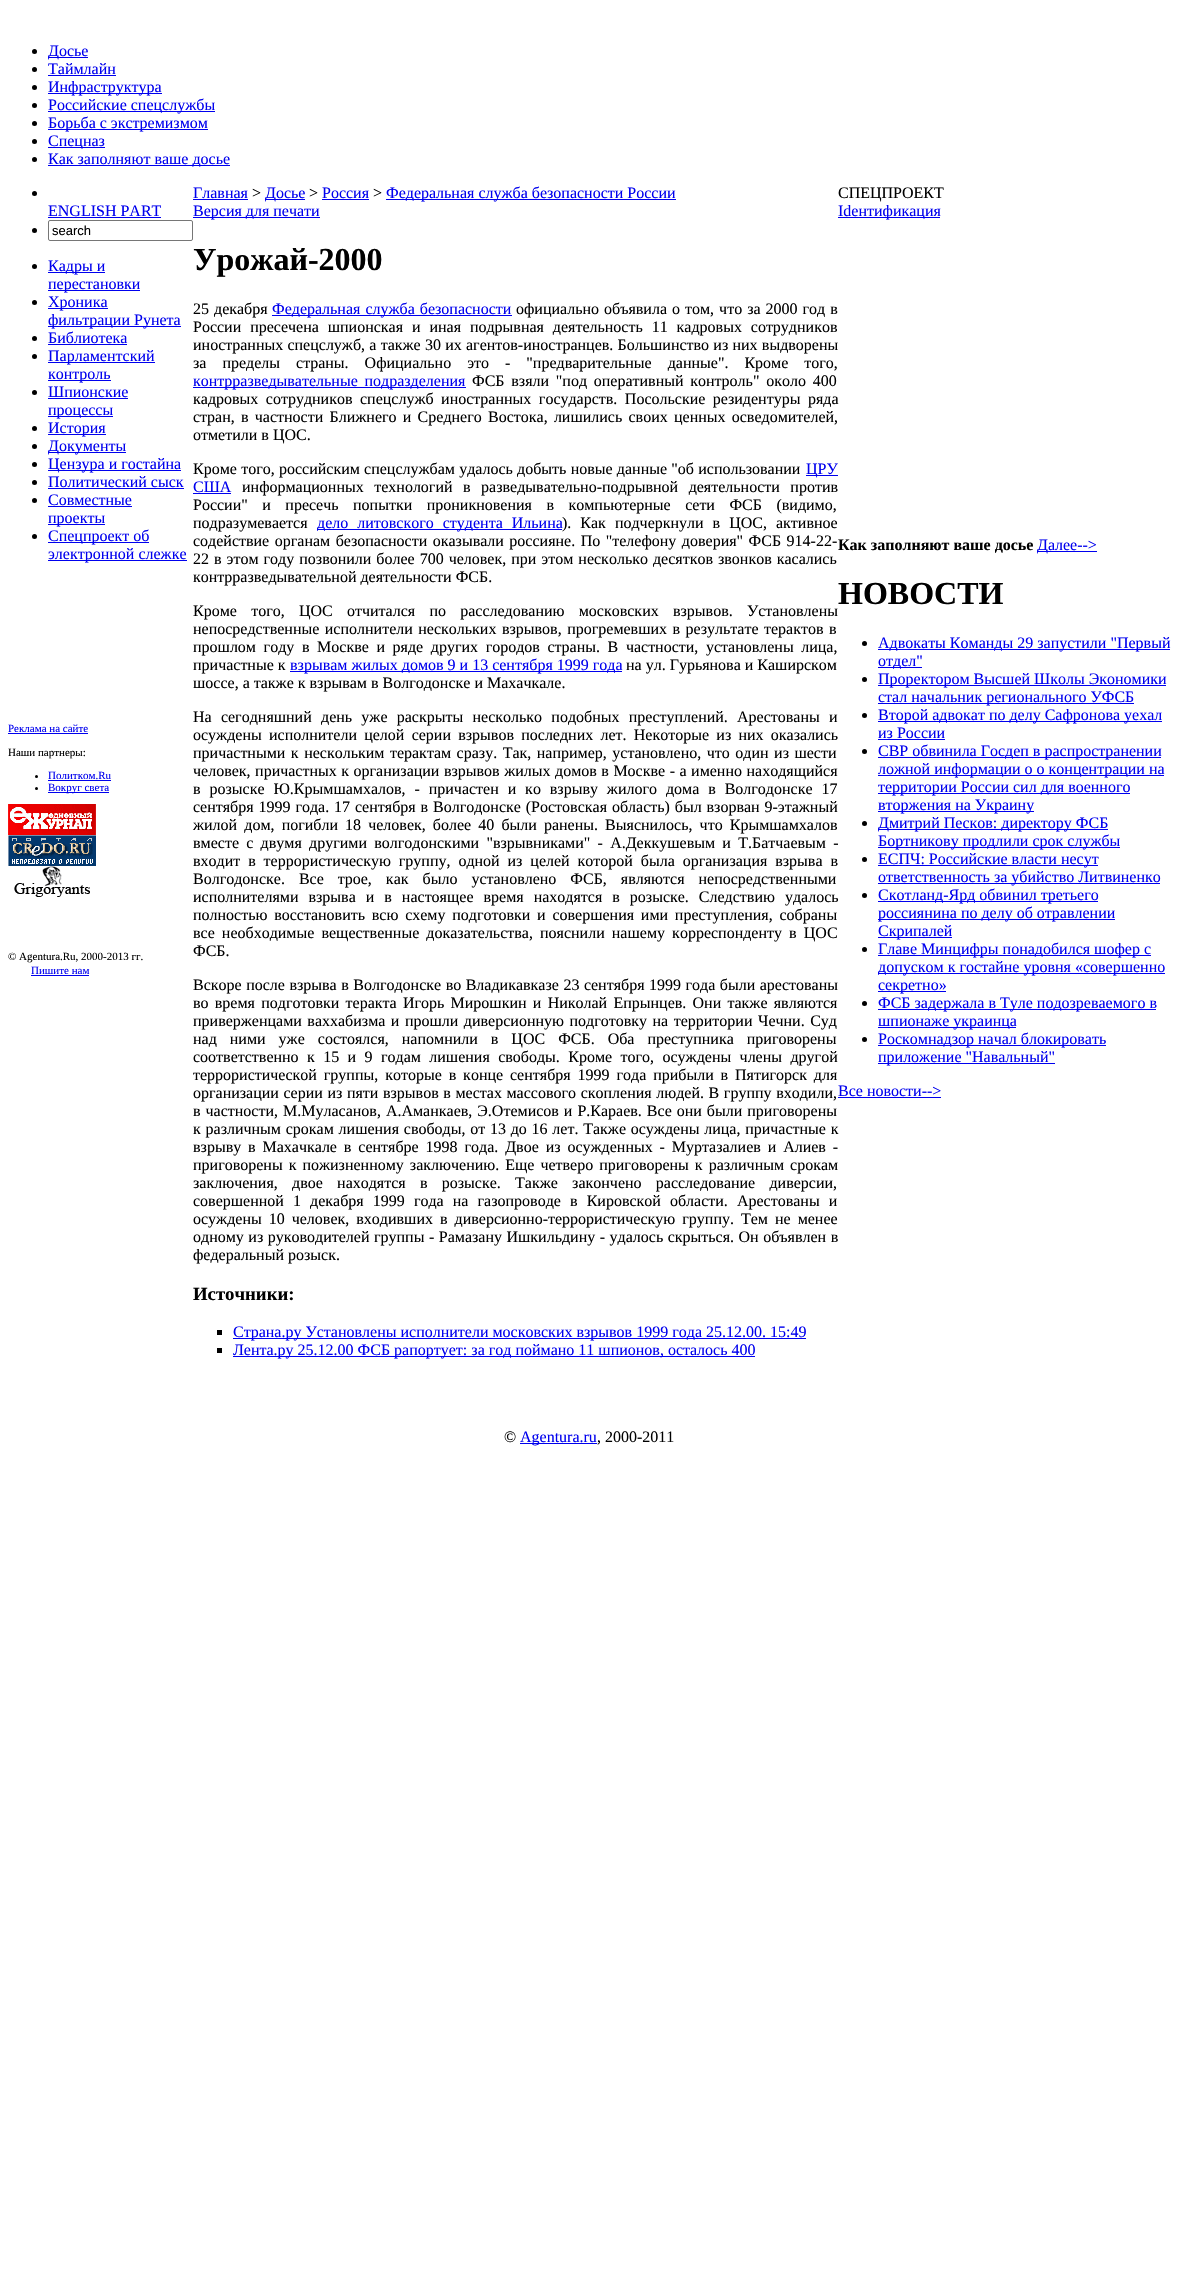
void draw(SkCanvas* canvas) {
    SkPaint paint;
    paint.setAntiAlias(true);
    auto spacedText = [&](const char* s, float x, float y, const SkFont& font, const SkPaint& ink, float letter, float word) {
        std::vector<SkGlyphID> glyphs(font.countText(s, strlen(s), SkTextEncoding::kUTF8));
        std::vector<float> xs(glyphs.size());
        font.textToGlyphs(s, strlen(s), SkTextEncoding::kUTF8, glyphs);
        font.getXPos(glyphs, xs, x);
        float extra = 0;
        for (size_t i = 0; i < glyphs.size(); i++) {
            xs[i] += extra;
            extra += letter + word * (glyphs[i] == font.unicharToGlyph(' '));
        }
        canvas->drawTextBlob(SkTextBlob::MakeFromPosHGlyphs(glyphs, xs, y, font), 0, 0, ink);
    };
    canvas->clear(0xFFFFFFFF);
    paint.setColor(0xFF000000);
    canvas->drawCircle(34.5f, 51.5f, 2.5f, paint);
    paint.setColor(0xFF0000EE);
    canvas->drawRect(SkRect::MakeXYWH(48, 57, 40, 1), paint);
    SkFont font1(fontMgr->matchFamilyStyle("Liberation Serif", SkFontStyle::Normal()), 16);
    font1.setSubpixel(true);
    canvas->drawString("Досье", 48, 56, font1, paint);
    paint.setColor(0xFF000000);
    canvas->drawCircle(34.5f, 69.5f, 2.5f, paint);
    paint.setColor(0xFF0000EE);
    canvas->drawString("Таймлайн", 48, 74, font1, paint);
    canvas->drawRect(SkRect::MakeXYWH(48, 75, 68, 1), paint);
    paint.setColor(0xFF000000);
    canvas->drawCircle(34.5f, 87.5f, 2.5f, paint);
    paint.setColor(0xFF0000EE);
    canvas->drawRect(SkRect::MakeXYWH(48, 93, 114, 1), paint);
    canvas->drawString("Инфраструктура", 48, 92, font1, paint);
    paint.setColor(0xFF000000);
    canvas->drawCircle(34.5f, 105.5f, 2.5f, paint);
    paint.setColor(0xFF0000EE);
    canvas->drawRect(SkRect::MakeXYWH(48, 111, 167, 1), paint);
    canvas->drawString("Российские спецслужбы", 48, 110, font1, paint);
    paint.setColor(0xFF000000);
    canvas->drawCircle(34.5f, 123.5f, 2.5f, paint);
    paint.setColor(0xFF0000EE);
    canvas->drawRect(SkRect::MakeXYWH(48, 129, 160, 1), paint);
    canvas->drawString("Борьба с экстремизмом", 48, 128, font1, paint);
    paint.setColor(0xFF000000);
    canvas->drawCircle(34.5f, 141.5f, 2.5f, paint);
    paint.setColor(0xFF0000EE);
    canvas->drawRect(SkRect::MakeXYWH(48, 147, 57, 1), paint);
    canvas->drawString("Спецназ", 48, 146, font1, paint);
    paint.setColor(0xFF000000);
    canvas->drawCircle(34.5f, 159.5f, 2.5f, paint);
    paint.setColor(0xFF0000EE);
    canvas->drawRect(SkRect::MakeXYWH(48, 165, 182, 1), paint);
    canvas->drawString("Как заполняют ваше досье", 48, 164, font1, paint);
    paint.setColor(0xFF000000);
    canvas->drawCircle(34.5f, 193.5f, 2.5f, paint);
    paint.setColor(0xFF0000EE);
    canvas->drawString("ENGLISH PART", 48, 216, font1, paint);
    canvas->drawRect(SkRect::MakeXYWH(48, 217, 113, 1), paint);
    paint.setColor(0xFF000000);
    canvas->drawCircle(34.5f, 230.5f, 2.5f, paint);
    paint.setStyle(SkPaint::kStroke_Style);
    paint.setStrokeWidth(1);
    paint.setColor(0xFF767676);
    canvas->drawRoundRect(SkRect::MakeXYWH(48.5f, 220.5f, 144, 20), 1.5f, 1.5f, paint);
    SkFont font2(fontMgr->matchFamilyStyle("Liberation Sans", SkFontStyle::Normal()), 13);
    font2.setSubpixel(true);
    paint.setStyle(SkPaint::kFill_Style);
    paint.setColor(0xFF000000);
    canvas->drawString("search", 52, 235, font2, paint);
    canvas->drawCircle(34.5f, 266.5f, 2.5f, paint);
    paint.setColor(0xFF0000EE);
    canvas->drawRect(SkRect::MakeXYWH(48, 272, 57, 1), paint);
    canvas->drawString("Кадры и", 48, 271, font1, paint);
    canvas->drawRect(SkRect::MakeXYWH(48, 290, 92, 1), paint);
    canvas->drawString("перестановки", 48, 289, font1, paint);
    paint.setColor(0xFF000000);
    canvas->drawCircle(34.5f, 302.5f, 2.5f, paint);
    paint.setColor(0xFF0000EE);
    canvas->drawRect(SkRect::MakeXYWH(48, 308, 60, 1), paint);
    canvas->drawString("Хроника", 48, 307, font1, paint);
    canvas->drawRect(SkRect::MakeXYWH(48, 326, 133, 1), paint);
    canvas->drawString("фильтрации Рунета", 48, 325, font1, paint);
    paint.setColor(0xFF000000);
    canvas->drawCircle(34.5f, 338.5f, 2.5f, paint);
    paint.setColor(0xFF0000EE);
    canvas->drawString("Библиотека", 48, 343, font1, paint);
    canvas->drawRect(SkRect::MakeXYWH(48, 344, 79, 1), paint);
    paint.setColor(0xFF000000);
    canvas->drawCircle(34.5f, 356.5f, 2.5f, paint);
    paint.setColor(0xFF0000EE);
    canvas->drawRect(SkRect::MakeXYWH(48, 362, 107, 1), paint);
    canvas->drawString("Парламентский", 48, 361, font1, paint);
    canvas->drawRect(SkRect::MakeXYWH(48, 380, 63, 1), paint);
    canvas->drawString("контроль", 48, 379, font1, paint);
    paint.setColor(0xFF000000);
    canvas->drawCircle(34.5f, 392.5f, 2.5f, paint);
    paint.setColor(0xFF0000EE);
    canvas->drawString("Шпионские", 48, 397, font1, paint);
    canvas->drawRect(SkRect::MakeXYWH(48, 398, 80, 1), paint);
    canvas->drawRect(SkRect::MakeXYWH(48, 416, 65, 1), paint);
    canvas->drawString("процессы", 48, 415, font1, paint);
    paint.setColor(0xFF000000);
    canvas->drawCircle(34.5f, 428.5f, 2.5f, paint);
    paint.setColor(0xFF0000EE);
    canvas->drawRect(SkRect::MakeXYWH(48, 434, 58, 1), paint);
    canvas->drawString("История", 48, 433, font1, paint);
    paint.setColor(0xFF000000);
    canvas->drawCircle(34.5f, 446.5f, 2.5f, paint);
    paint.setColor(0xFF0000EE);
    canvas->drawRect(SkRect::MakeXYWH(48, 452, 78, 1), paint);
    canvas->drawString("Документы", 48, 451, font1, paint);
    paint.setColor(0xFF000000);
    canvas->drawCircle(34.5f, 464.5f, 2.5f, paint);
    paint.setColor(0xFF0000EE);
    canvas->drawRect(SkRect::MakeXYWH(48, 470, 133, 1), paint);
    canvas->drawString("Цензура и гостайна", 48, 469, font1, paint);
    paint.setColor(0xFF000000);
    canvas->drawCircle(34.5f, 482.5f, 2.5f, paint);
    paint.setColor(0xFF0000EE);
    canvas->drawString("Политический сыск", 48, 487, font1, paint);
    canvas->drawRect(SkRect::MakeXYWH(48, 488, 136, 1), paint);
    paint.setColor(0xFF000000);
    canvas->drawCircle(34.5f, 500.5f, 2.5f, paint);
    paint.setColor(0xFF0000EE);
    canvas->drawString("Совместные", 48, 505, font1, paint);
    canvas->drawRect(SkRect::MakeXYWH(48, 506, 84, 1), paint);
    canvas->drawRect(SkRect::MakeXYWH(48, 524, 57, 1), paint);
    canvas->drawString("проекты", 48, 523, font1, paint);
    paint.setColor(0xFF000000);
    canvas->drawCircle(34.5f, 536.5f, 2.5f, paint);
    paint.setColor(0xFF0000EE);
    canvas->drawRect(SkRect::MakeXYWH(48, 542, 101, 1), paint);
    canvas->drawString("Спецпроект об", 48, 541, font1, paint);
    canvas->drawRect(SkRect::MakeXYWH(48, 560, 139, 1), paint);
    canvas->drawString("электронной слежке", 48, 559, font1, paint);
    SkFont font3(fontMgr->matchFamilyStyle("Liberation Serif", SkFontStyle::Normal()), 11);
    font3.setSubpixel(true);
    canvas->drawString("Реклама на сайте", 8, 732, font3, paint);
    canvas->drawRect(SkRect::MakeXYWH(8, 733, 80, 1), paint);
    paint.setColor(0xFF000000);
    canvas->drawString("Наши партнеры:", 8, 756, font3, paint);
    canvas->drawCircle(36.5f, 776.5f, 1.5f, paint);
    paint.setColor(0xFF0000EE);
    canvas->drawString("Политком.Ru", 48, 779, font3, paint);
    canvas->drawRect(SkRect::MakeXYWH(48, 780, 63, 1), paint);
    paint.setColor(0xFF000000);
    canvas->drawCircle(36.5f, 788.5f, 1.5f, paint);
    paint.setColor(0xFF0000EE);
    canvas->drawRect(SkRect::MakeXYWH(48, 792, 61, 1), paint);
    canvas->drawString("Вокруг света", 48, 791, font3, paint);
    canvas->drawImageRect(SkImages::DeferredFromEncodedData(SkData::MakeFromFileName("img1.png")), SkRect::MakeXYWH(8, 804, 88, 31), SkSamplingOptions());
    canvas->drawImageRect(SkImages::DeferredFromEncodedData(SkData::MakeFromFileName("img2.png")), SkRect::MakeXYWH(8, 835, 88, 31), SkSamplingOptions());
    canvas->drawImageRect(SkImages::DeferredFromEncodedData(SkData::MakeFromFileName("img3.png")), SkRect::MakeXYWH(14, 866, 76, 31), SkSamplingOptions());
    paint.setColor(0xFF000000);
    canvas->drawString("© Agentura.Ru, 2000-2013 гг.", 8, 960, font3, paint);
    paint.setColor(0xFF0000EE);
    canvas->drawString("Пишите нам", 31, 974, font3, paint);
    canvas->drawRect(SkRect::MakeXYWH(31, 975, 58, 1), paint);
    canvas->drawString("Главная", 193, 198, font1, paint);
    canvas->drawRect(SkRect::MakeXYWH(193, 199, 55, 1), paint);
    paint.setColor(0xFF000000);
    canvas->drawString(">", 252, 198, font1, paint);
    paint.setColor(0xFF0000EE);
    canvas->drawRect(SkRect::MakeXYWH(265, 199, 40, 1), paint);
    canvas->drawString("Досье", 265, 198, font1, paint);
    paint.setColor(0xFF000000);
    canvas->drawString(">", 309, 198, font1, paint);
    paint.setColor(0xFF0000EE);
    canvas->drawString("Россия", 322, 198, font1, paint);
    canvas->drawRect(SkRect::MakeXYWH(322, 199, 47, 1), paint);
    paint.setColor(0xFF000000);
    canvas->drawString(">", 373, 198, font1, paint);
    paint.setColor(0xFF0000EE);
    canvas->drawRect(SkRect::MakeXYWH(386, 199, 290, 1), paint);
    canvas->drawString("Федеральная служба безопасности России", 386, 198, font1, paint);
    canvas->drawRect(SkRect::MakeXYWH(193, 217, 127, 1), paint);
    canvas->drawString("Версия для печати", 193, 216, font1, paint);
    SkFont font4(fontMgr->matchFamilyStyle("Liberation Serif", SkFontStyle::Bold()), 32);
    font4.setSubpixel(true);
    paint.setColor(0xFF000000);
    canvas->drawString("Урожай-2000", 193, 270, font4, paint);
    spacedText("25 декабря", 193, 314, font1, paint, 0, 1);
    paint.setColor(0xFF0000EE);
    canvas->drawRect(SkRect::MakeXYWH(272, 315, 240, 1), paint);
    spacedText("Федеральная служба безопасности", 272, 314, font1, paint, 0, 1);
    paint.setColor(0xFF000000);
    spacedText("официально объявила о том, что за 2000 год в", 516, 314, font1, paint, 0, 1);
    spacedText("России пресечена шпионская и иная подрывная деятельность 11 кадровых сотрудников", 193, 332, font1, paint, 0, 4.9f);
    spacedText("иностранных спецслужб, а также 30 их агентов-иностранцев. Большинство из них выдворены", 193, 350, font1, paint, 0, 0.25f);
    spacedText("за пределы страны. Официально это - \"предварительные данные\". Кроме того,", 193, 368, font1, paint, 0, 12);
    paint.setColor(0xFF0000EE);
    canvas->drawRect(SkRect::MakeXYWH(193, 387, 273, 1), paint);
    spacedText("контрразведывательные подразделения", 193, 386, font1, paint, 0, 2.75f);
    paint.setColor(0xFF000000);
    spacedText("ФСБ взяли \"под оперативный контроль\" около 400", 472, 386, font1, paint, 0, 2.75f);
    spacedText("кадровых сотрудников спецслужб иностранных государств. Посольские резидентуры ряда", 193, 404, font1, paint, 0, 3.5f);
    spacedText("стран, в частности Ближнего и Среднего Востока, лишились своих ценных осведомителей,", 193, 422, font1, paint, 0, 2.25f);
    canvas->drawString("отметили в ЦОС.", 193, 440, font1, paint);
    spacedText("Кроме того, российским спецслужбам удалось добыть новые данные \"об использовании", 193, 474, font1, paint, 0, 0.25f);
    paint.setColor(0xFF0000EE);
    canvas->drawRect(SkRect::MakeXYWH(806, 475, 32, 1), paint);
    canvas->drawString("ЦРУ", 806, 474, font1, paint);
    canvas->drawString("США", 193, 492, font1, paint);
    canvas->drawRect(SkRect::MakeXYWH(193, 493, 38, 1), paint);
    paint.setColor(0xFF000000);
    spacedText("информационных технологий в разведывательно-подрывной деятельности против", 242, 492, font1, paint, 0, 6.5f);
    spacedText("России\" и пресечь попытки проникновения в компьютерные сети ФСБ (видимо,", 193, 510, font1, paint, 0, 10.5f);
    canvas->drawString("подразумевается", 193, 528, font1, paint);
    paint.setColor(0xFF0000EE);
    canvas->drawRect(SkRect::MakeXYWH(317, 529, 245, 1), paint);
    spacedText("дело литовского студента Ильина", 317, 528, font1, paint, 0, 5);
    paint.setColor(0xFF000000);
    spacedText("). Как подчеркнули в ЦОС, активное", 562, 528, font1, paint, 0, 5);
    spacedText("содействие органам безопасности оказывали россияне. По \"телефону доверия\" ФСБ 914-22-", 193, 546, font1, paint, 0, 1.5f);
    spacedText("22 в этом году позвонили более 700 человек, при этом несколько десятков звонков касались", 193, 564, font1, paint, 0, 1);
    canvas->drawString("контрразведывательной деятельности ФСБ.", 193, 582, font1, paint);
    spacedText("Кроме того, ЦОС отчитался по расследованию московских взрывов. Установлены", 193, 616, font1, paint, 0, 10.25f);
    spacedText("непосредственные исполнители нескольких взрывов, прогремевших в результате терактов в", 193, 634, font1, paint, 0, 1.5f);
    spacedText("прошлом году в Москве и ряде других городов страны. В частности, установлены лица,", 193, 652, font1, paint, 0, 3.6f);
    canvas->drawString("причастные к", 193, 670, font1, paint);
    paint.setColor(0xFF0000EE);
    canvas->drawRect(SkRect::MakeXYWH(290, 671, 332, 1), paint);
    canvas->drawString("взрывам жилых домов 9 и 13 сентября 1999 года", 290, 670, font1, paint);
    paint.setColor(0xFF000000);
    canvas->drawString("на ул. Гурьянова и Каширском", 626, 670, font1, paint);
    canvas->drawString("шоссе, а также к взрывам в Волгодонске и Махачкале.", 193, 688, font1, paint);
    spacedText("На сегодняшний день уже раскрыты несколько подобных преступлений. Арестованы и", 193, 722, font1, paint, 0, 5.25f);
    spacedText("осуждены исполнители целой серии взрывов последних лет. Некоторые из них оказались", 193, 740, font1, paint, 0, 3.25f);
    spacedText("причастными к нескольким терактам сразу. Так, например, установлено, что один из шести", 193, 758, font1, paint, 0, 1.5f);
    spacedText("человек, причастных к организации взрывов жилых домов в Москве - а именно находящийся", 193, 776, font1, paint, 0, 0.5f);
    spacedText("в розыске Ю.Крымшамхалов, - причастен и ко взрыву жилого дома в Волгодонске 17", 193, 794, font1, paint, 0, 4.9f);
    spacedText("сентября 1999 года. 17 сентября в Волгодонске (Ростовская область) был взорван 9-этажный", 193, 812, font1, paint, 0, 0.9f);
    spacedText("жилой дом, погибли 18 человек, более 40 были ранены. Выяснилось, что Крымшамхалов", 193, 830, font1, paint, 0, 3.1f);
    spacedText("вместе с двумя другими волгодонскими \"взрывниками\" - А.Деккушевым и Т.Батчаевым -", 193, 848, font1, paint, 0, 3.25f);
    spacedText("входит в террористическую группу, одной из целей которой была организация взрыва в", 193, 866, font1, paint, 0, 3.9f);
    spacedText("Волгодонске. Все трое, как было установлено ФСБ, являются непосредственными", 193, 884, font1, paint, 0, 10);
    spacedText("исполнителями взрыва и в настоящее время находятся в розыске. Следствию удалось", 193, 902, font1, paint, 0, 6);
    spacedText("полностью восстановить всю схему подготовки и совершения ими преступления, собраны", 193, 920, font1, paint, 0, 2.75f);
    spacedText("все необходимые вещественные доказательства, пояснили нашему корреспонденту в ЦОС", 193, 938, font1, paint, 0, 3.1f);
    canvas->drawString("ФСБ.", 193, 956, font1, paint);
    spacedText("Вскоре после взрыва в Волгодонске во Владикавказе 23 сентября 1999 года были арестованы", 193, 990, font1, paint, 0, 0.5f);
    spacedText("во время подготовки теракта Игорь Мирошкин и Николай Епрынцев. Они также являются", 193, 1008, font1, paint, 0, 2.25f);
    spacedText("приверженцами ваххабизма и прошли диверсионную подготовку на территории Чечни. Суд", 193, 1026, font1, paint, 0, 1.5f);
    spacedText("над ними уже состоялся, напомнили в ЦОС ФСБ. Оба преступника приговорены", 193, 1044, font1, paint, 0, 9);
    spacedText("соответственно к 15 и 9 годам лишения свободы. Кроме того, осуждены члены другой", 193, 1062, font1, paint, 0, 4.4f);
    spacedText("террористической группы, которые в конце сентября 1999 года прибыли в Пятигорск для", 193, 1080, font1, paint, 0, 2.9f);
    spacedText("организации серии из пяти взрывов в местах массового скопления людей. В группу входили,", 193, 1098, font1, paint, 0, 0.6f);
    spacedText("в частности, М.Муласанов, А.Аманкаев, Э.Отемисов и Р.Караев. Все они были приговорены", 193, 1116, font1, paint, 0, 1);
    spacedText("к различным срокам лишения свободы, от 13 до 16 лет. Также осуждены лица, причастные к", 193, 1134, font1, paint, 0, 0.75f);
    spacedText("взрыву в Махачкале в сентябре 1998 года. Двое из осужденных - Муртазалиев и Алиев -", 193, 1152, font1, paint, 0, 2.9f);
    spacedText("приговорены к пожизненному заключению. Еще четверо приговорены к различным срокам", 193, 1170, font1, paint, 0, 2);
    spacedText("заключения, двое находятся в розыске. Также закончено расследование диверсии,", 193, 1188, font1, paint, 0, 10.25f);
    spacedText("совершенной 1 декабря 1999 года на газопроводе в Кировской области. Арестованы и", 193, 1206, font1, paint, 0, 5.1f);
    spacedText("осуждены 10 человек, входивших в диверсионно-террористическую группу. Тем не менее", 193, 1224, font1, paint, 0, 3);
    spacedText("одному из руководителей группы - Рамазану Ишкильдину - удалось скрыться. Он объявлен в", 193, 1242, font1, paint, 0, 0.5f);
    canvas->drawString("федеральный розыск.", 193, 1260, font1, paint);
    SkFont font5(fontMgr->matchFamilyStyle("Liberation Serif", SkFontStyle::Bold()), 18.75f);
    font5.setSubpixel(true);
    canvas->drawString("Источники:", 193, 1300, font5, paint);
    canvas->drawRect(SkRect::MakeXYWH(217, 1330, 5, 5), paint);
    paint.setColor(0xFF0000EE);
    canvas->drawRect(SkRect::MakeXYWH(233, 1338, 573, 1), paint);
    canvas->drawString("Страна.ру Установлены исполнители московских взрывов 1999 года 25.12.00. 15:49", 233, 1337, font1, paint);
    paint.setColor(0xFF000000);
    canvas->drawRect(SkRect::MakeXYWH(217, 1348, 5, 5), paint);
    paint.setColor(0xFF0000EE);
    canvas->drawRect(SkRect::MakeXYWH(233, 1356, 522, 1), paint);
    canvas->drawString("Лента.ру 25.12.00 ФСБ рапортует: за год поймано 11 шпионов, осталось 400", 233, 1355, font1, paint);
    paint.setColor(0xFF000000);
    canvas->drawString("СПЕЦПРОЕКТ", 838, 198, font1, paint);
    paint.setColor(0xFF0000EE);
    canvas->drawRect(SkRect::MakeXYWH(838, 217, 102, 1), paint);
    canvas->drawString("Idентификация", 838, 216, font1, paint);
    SkFont font6(fontMgr->matchFamilyStyle("Liberation Serif", SkFontStyle::Bold()), 16);
    font6.setSubpixel(true);
    paint.setColor(0xFF000000);
    canvas->drawString("Как заполняют ваше досье", 838, 550, font6, paint);
    paint.setColor(0xFF0000EE);
    canvas->drawRect(SkRect::MakeXYWH(1037, 551, 60, 1), paint);
    canvas->drawString("Далее-->", 1037, 550, font1, paint);
    paint.setColor(0xFF000000);
    canvas->drawString("НОВОСТИ", 838, 604, font4, paint);
    canvas->drawCircle(864.5f, 643.5f, 2.5f, paint);
    paint.setColor(0xFF0000EE);
    canvas->drawRect(SkRect::MakeXYWH(878, 649, 292, 1), paint);
    canvas->drawString("Адвокаты Команды 29 запустили \"Первый", 878, 648, font1, paint);
    canvas->drawRect(SkRect::MakeXYWH(878, 667, 44, 1), paint);
    canvas->drawString("отдел\"", 878, 666, font1, paint);
    paint.setColor(0xFF000000);
    canvas->drawCircle(864.5f, 679.5f, 2.5f, paint);
    paint.setColor(0xFF0000EE);
    canvas->drawRect(SkRect::MakeXYWH(878, 685, 288, 1), paint);
    canvas->drawString("Проректором Высшей Школы Экономики", 878, 684, font1, paint);
    canvas->drawRect(SkRect::MakeXYWH(878, 703, 256, 1), paint);
    canvas->drawString("стал начальник регионального УФСБ", 878, 702, font1, paint);
    paint.setColor(0xFF000000);
    canvas->drawCircle(864.5f, 715.5f, 2.5f, paint);
    paint.setColor(0xFF0000EE);
    canvas->drawRect(SkRect::MakeXYWH(878, 721, 284, 1), paint);
    canvas->drawString("Второй адвокат по делу Сафронова уехал", 878, 720, font1, paint);
    canvas->drawString("из России", 878, 738, font1, paint);
    canvas->drawRect(SkRect::MakeXYWH(878, 739, 67, 1), paint);
    paint.setColor(0xFF000000);
    canvas->drawCircle(864.5f, 751.5f, 2.5f, paint);
    paint.setColor(0xFF0000EE);
    canvas->drawRect(SkRect::MakeXYWH(878, 757, 283, 1), paint);
    canvas->drawString("СВР обвинила Госдеп в распространении", 878, 756, font1, paint);
    canvas->drawRect(SkRect::MakeXYWH(878, 775, 286, 1), paint);
    canvas->drawString("ложной информации о о концентрации на", 878, 774, font1, paint);
    canvas->drawRect(SkRect::MakeXYWH(878, 793, 252, 1), paint);
    canvas->drawString("территории России сил для военного", 878, 792, font1, paint);
    canvas->drawRect(SkRect::MakeXYWH(878, 811, 156, 1), paint);
    canvas->drawString("вторжения на Украину", 878, 810, font1, paint);
    paint.setColor(0xFF000000);
    canvas->drawCircle(864.5f, 823.5f, 2.5f, paint);
    paint.setColor(0xFF0000EE);
    canvas->drawRect(SkRect::MakeXYWH(878, 829, 230, 1), paint);
    canvas->drawString("Дмитрий Песков: директору ФСБ", 878, 828, font1, paint);
    canvas->drawRect(SkRect::MakeXYWH(878, 847, 242, 1), paint);
    canvas->drawString("Бортникову продлили срок службы", 878, 846, font1, paint);
    paint.setColor(0xFF000000);
    canvas->drawCircle(864.5f, 859.5f, 2.5f, paint);
    paint.setColor(0xFF0000EE);
    canvas->drawRect(SkRect::MakeXYWH(878, 865, 220, 1), paint);
    canvas->drawString("ЕСПЧ: Российские власти несут", 878, 864, font1, paint);
    canvas->drawRect(SkRect::MakeXYWH(878, 883, 282, 1), paint);
    canvas->drawString("ответственность за убийство Литвиненко", 878, 882, font1, paint);
    paint.setColor(0xFF000000);
    canvas->drawCircle(864.5f, 895.5f, 2.5f, paint);
    paint.setColor(0xFF0000EE);
    canvas->drawRect(SkRect::MakeXYWH(878, 901, 220, 1), paint);
    canvas->drawString("Скотланд-Ярд обвинил третьего", 878, 900, font1, paint);
    canvas->drawRect(SkRect::MakeXYWH(878, 919, 237, 1), paint);
    canvas->drawString("россиянина по делу об отравлении", 878, 918, font1, paint);
    canvas->drawRect(SkRect::MakeXYWH(878, 937, 74, 1), paint);
    canvas->drawString("Скрипалей", 878, 936, font1, paint);
    paint.setColor(0xFF000000);
    canvas->drawCircle(864.5f, 949.5f, 2.5f, paint);
    paint.setColor(0xFF0000EE);
    canvas->drawRect(SkRect::MakeXYWH(878, 955, 273, 1), paint);
    canvas->drawString("Главе Минцифры понадобился шофер с", 878, 954, font1, paint);
    canvas->drawRect(SkRect::MakeXYWH(878, 973, 287, 1), paint);
    canvas->drawString("допуском к гостайне уровня «совершенно", 878, 972, font1, paint);
    canvas->drawRect(SkRect::MakeXYWH(878, 991, 68, 1), paint);
    canvas->drawString("секретно»", 878, 990, font1, paint);
    paint.setColor(0xFF000000);
    canvas->drawCircle(864.5f, 1003.5f, 2.5f, paint);
    paint.setColor(0xFF0000EE);
    canvas->drawRect(SkRect::MakeXYWH(878, 1009, 278, 1), paint);
    canvas->drawString("ФСБ задержала в Туле подозреваемого в", 878, 1008, font1, paint);
    canvas->drawRect(SkRect::MakeXYWH(878, 1027, 138, 1), paint);
    canvas->drawString("шпионаже украинца", 878, 1026, font1, paint);
    paint.setColor(0xFF000000);
    canvas->drawCircle(864.5f, 1039.5f, 2.5f, paint);
    paint.setColor(0xFF0000EE);
    canvas->drawRect(SkRect::MakeXYWH(878, 1045, 228, 1), paint);
    canvas->drawString("Роскомнадзор начал блокировать", 878, 1044, font1, paint);
    canvas->drawRect(SkRect::MakeXYWH(878, 1063, 177, 1), paint);
    canvas->drawString("приложение \"Навальный\"", 878, 1062, font1, paint);
    canvas->drawString("Все новости-->", 838, 1096, font1, paint);
    canvas->drawRect(SkRect::MakeXYWH(838, 1097, 103, 1), paint);
    paint.setColor(0xFF000000);
    canvas->drawString("©", 504, 1442, font1, paint);
    paint.setColor(0xFF0000EE);
    canvas->drawRect(SkRect::MakeXYWH(520, 1443, 77, 1), paint);
    canvas->drawString("Agentura.ru", 520, 1442, font1, paint);
    paint.setColor(0xFF000000);
    canvas->drawString(", 2000-2011", 597, 1442, font1, paint);
}
